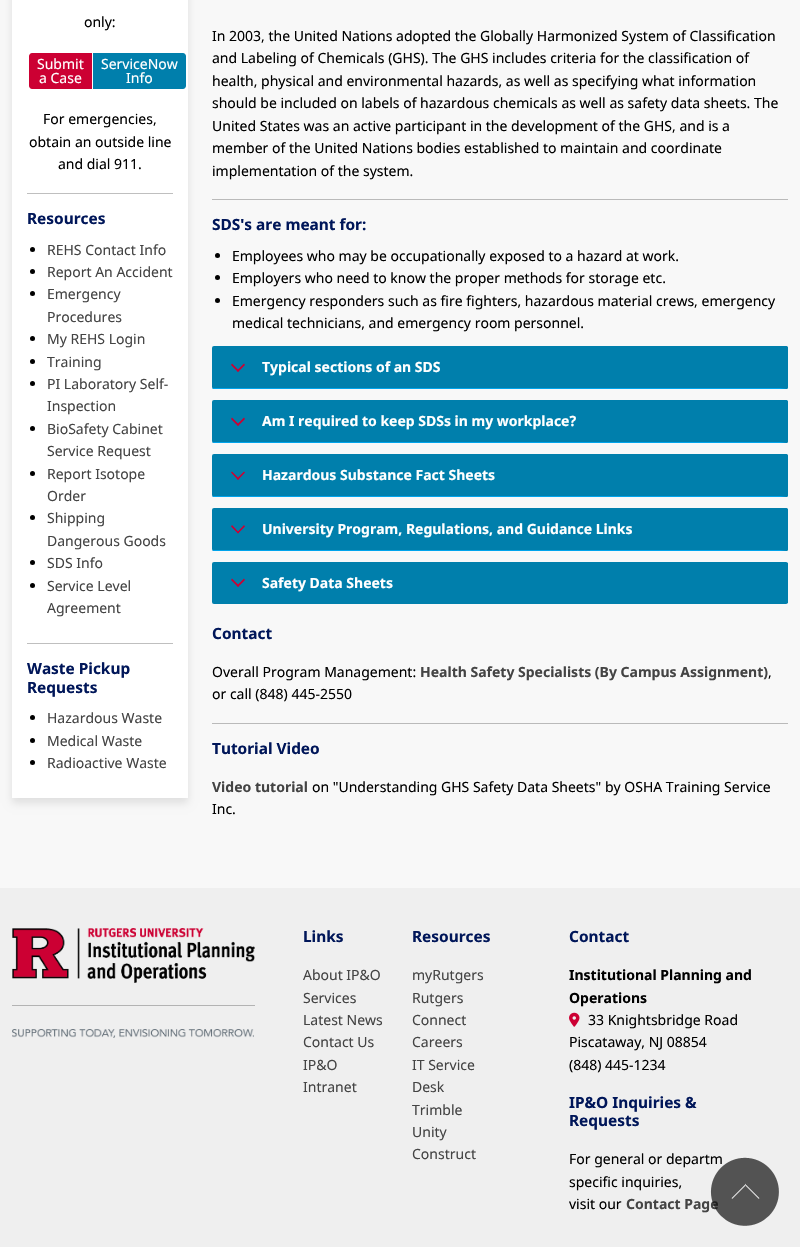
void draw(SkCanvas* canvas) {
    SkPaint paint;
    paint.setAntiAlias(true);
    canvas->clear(0xFFF8F8F8);
    paint.setColor(0x1A000000);
    paint.setMaskFilter(SkMaskFilter::MakeBlur(kNormal_SkBlurStyle, 4));
    canvas->drawRect(SkRect::MakeXYWH(12, -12, 176, 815), paint);
    paint.setMaskFilter(nullptr);
    paint.setColor(0xFFFFFFFF);
    canvas->drawRect(SkRect::MakeXYWH(12, 0, 176, 798), paint);
    SkFont font1(fontMgr->matchFamilyStyle("Noto Sans", SkFontStyle::Normal()), 14);
    font1.setSubpixel(true);
    paint.setColor(0xFF000000);
    canvas->drawString("only:", 84, 27, font1, paint);
    paint.setColor(0xFFCC0033);
    canvas->drawPath(SkPathBuilder().moveTo(32, 53).lineTo(92, 53).lineTo(92, 89).lineTo(32, 89).cubicTo(30.5f, 89, 29, 87.5f, 29, 86).lineTo(29, 56).cubicTo(29, 54.5f, 30.5f, 53, 32, 53).close().detach(), paint);
    paint.setColor(0xFFFFFFFF);
    canvas->drawString("Submit", 37, 69, font1, paint);
    canvas->drawString("a Case", 39, 83, font1, paint);
    paint.setColor(0xFF007FAC);
    canvas->drawPath(SkPathBuilder().moveTo(93, 53).lineTo(183, 53).cubicTo(184.5f, 53, 186, 54.5f, 186, 56).lineTo(186, 86).cubicTo(186, 87.5f, 184.5f, 89, 183, 89).lineTo(93, 89).close().detach(), paint);
    paint.setColor(0xFFFFFFFF);
    canvas->drawString("ServiceNow", 101, 69, font1, paint);
    canvas->drawString("Info", 126, 83, font1, paint);
    paint.setColor(0xFF000000);
    canvas->drawString("For emergencies,", 43, 124, font1, paint);
    canvas->drawString("obtain an outside line", 29, 147, font1, paint);
    canvas->drawString("and dial 911.", 58, 169, font1, paint);
    paint.setColor(0xFFBFBFBF);
    canvas->drawRect(SkRect::MakeXYWH(27, 193, 146, 1), paint);
    SkFont font2(fontMgr->matchFamilyStyle("Noto Sans", SkFontStyle::Bold()), 15.4f);
    font2.setSubpixel(true);
    paint.setColor(0xFF001659);
    canvas->drawString("Resources", 27, 224, font2, paint);
    paint.setColor(0xFF000000);
    canvas->drawCircle(32.5f, 249.5f, 2.5f, paint);
    paint.setColor(0xFF444444);
    canvas->drawString("REHS Contact Info", 47, 255, font1, paint);
    paint.setColor(0xFF000000);
    canvas->drawCircle(32.5f, 271.5f, 2.5f, paint);
    paint.setColor(0xFF444444);
    canvas->drawString("Report An Accident", 47, 277, font1, paint);
    paint.setColor(0xFF000000);
    canvas->drawCircle(32.5f, 293.5f, 2.5f, paint);
    paint.setColor(0xFF444444);
    canvas->drawString("Emergency", 47, 299, font1, paint);
    canvas->drawString("Procedures", 47, 322, font1, paint);
    paint.setColor(0xFF000000);
    canvas->drawCircle(32.5f, 338.5f, 2.5f, paint);
    paint.setColor(0xFF444444);
    canvas->drawString("My REHS Login", 47, 344, font1, paint);
    paint.setColor(0xFF000000);
    canvas->drawCircle(32.5f, 361.5f, 2.5f, paint);
    paint.setColor(0xFF444444);
    canvas->drawString("Training", 47, 367, font1, paint);
    paint.setColor(0xFF000000);
    canvas->drawCircle(32.5f, 383.5f, 2.5f, paint);
    paint.setColor(0xFF444444);
    canvas->drawString("PI Laboratory Self-", 47, 389, font1, paint);
    canvas->drawString("Inspection", 47, 411, font1, paint);
    paint.setColor(0xFF000000);
    canvas->drawCircle(32.5f, 428.5f, 2.5f, paint);
    paint.setColor(0xFF444444);
    canvas->drawString("BioSafety Cabinet", 47, 434, font1, paint);
    canvas->drawString("Service Request", 47, 456, font1, paint);
    paint.setColor(0xFF000000);
    canvas->drawCircle(32.5f, 473.5f, 2.5f, paint);
    paint.setColor(0xFF444444);
    canvas->drawString("Report Isotope", 47, 479, font1, paint);
    canvas->drawString("Order", 47, 501, font1, paint);
    paint.setColor(0xFF000000);
    canvas->drawCircle(32.5f, 517.5f, 2.5f, paint);
    paint.setColor(0xFF444444);
    canvas->drawString("Shipping", 47, 523, font1, paint);
    canvas->drawString("Dangerous Goods", 47, 546, font1, paint);
    paint.setColor(0xFF000000);
    canvas->drawCircle(32.5f, 562.5f, 2.5f, paint);
    paint.setColor(0xFF444444);
    canvas->drawString("SDS Info", 47, 568, font1, paint);
    paint.setColor(0xFF000000);
    canvas->drawCircle(32.5f, 585.5f, 2.5f, paint);
    paint.setColor(0xFF444444);
    canvas->drawString("Service Level", 47, 591, font1, paint);
    canvas->drawString("Agreement", 47, 613, font1, paint);
    paint.setColor(0xFFBFBFBF);
    canvas->drawRect(SkRect::MakeXYWH(27, 643, 146, 1), paint);
    paint.setColor(0xFF001659);
    canvas->drawString("Waste Pickup", 27, 674, font2, paint);
    canvas->drawString("Requests", 27, 693, font2, paint);
    paint.setColor(0xFF000000);
    canvas->drawCircle(32.5f, 717.5f, 2.5f, paint);
    paint.setColor(0xFF444444);
    canvas->drawString("Hazardous Waste", 47, 723, font1, paint);
    paint.setColor(0xFF000000);
    canvas->drawCircle(32.5f, 740.5f, 2.5f, paint);
    paint.setColor(0xFF444444);
    canvas->drawString("Medical Waste", 47, 746, font1, paint);
    paint.setColor(0xFF000000);
    canvas->drawCircle(32.5f, 762.5f, 2.5f, paint);
    paint.setColor(0xFF444444);
    canvas->drawString("Radioactive Waste", 47, 768, font1, paint);
    paint.setColor(0xFF000000);
    canvas->drawString("In 2003, the United Nations adopted the Globally Harmonized System of Classification", 212, 41, font1, paint);
    canvas->drawString("and Labeling of Chemicals (GHS). The GHS includes criteria for the classification of", 212, 63, font1, paint);
    canvas->drawString("health, physical and environmental hazards, as well as specifying what information", 212, 86, font1, paint);
    canvas->drawString("should be included on labels of hazardous chemicals as well as safety data sheets. The", 212, 108, font1, paint);
    canvas->drawString("United States was an active participant in the development of the GHS, and is a", 212, 131, font1, paint);
    canvas->drawString("member of the United Nations bodies established to maintain and coordinate", 212, 153, font1, paint);
    canvas->drawString("implementation of the system.", 212, 176, font1, paint);
    paint.setColor(0xFFBABABA);
    canvas->drawRect(SkRect::MakeXYWH(212, 199, 576, 1), paint);
    paint.setColor(0xFF001659);
    canvas->drawString("SDS's are meant for:", 212, 230, font2, paint);
    paint.setColor(0xFF000000);
    canvas->drawCircle(217.5f, 255.5f, 2.5f, paint);
    canvas->drawString("Employees who may be occupationally exposed to a hazard at work.", 232, 261, font1, paint);
    canvas->drawCircle(217.5f, 277.5f, 2.5f, paint);
    canvas->drawString("Employers who need to know the proper methods for storage etc.", 232, 283, font1, paint);
    canvas->drawCircle(217.5f, 300.5f, 2.5f, paint);
    canvas->drawString("Emergency responders such as fire fighters, hazardous material crews, emergency", 232, 306, font1, paint);
    canvas->drawString("medical technicians, and emergency room personnel.", 232, 328, font1, paint);
    paint.setColor(0xFF007FAC);
    canvas->drawRoundRect(SkRect::MakeXYWH(212, 346, 576, 43), 2, 2, paint);
    canvas->drawPath(SkPathBuilder().moveTo(786, 346).lineTo(780, 346).lineTo(780, 388).lineTo(787, 389).cubicTo(787, 389, 788, 388, 788, 387).lineTo(788, 348).cubicTo(788, 347, 787, 346, 786, 346).close().detach(), paint);
    paint.setColor(0xFF00A4EC);
    canvas->drawPath(SkPathBuilder().moveTo(214, 389).lineTo(787, 389).lineTo(780, 388).lineTo(214, 388).cubicTo(213, 388, 212, 388, 212, 387).cubicTo(212, 388, 213, 389, 214, 389).close().detach(), paint);
    paint.setColor(0xFFCC0033);
    canvas->drawPath(SkPathBuilder().moveTo(245, 365).lineTo(238, 372).lineTo(237, 370.5f).lineTo(244, 363.5f).close().detach(), paint);
    paint.setColor(0xFF007FAC);
    canvas->drawRoundRect(SkRect::MakeXYWH(212, 400, 576, 43), 2, 2, paint);
    paint.setColor(0xFFCC0033);
    canvas->drawPath(SkPathBuilder().moveTo(238, 372).lineTo(231, 365).lineTo(232, 363.5f).lineTo(239, 370.5f).close().moveTo(245, 419).lineTo(238, 426).lineTo(237, 424.5f).lineTo(244, 417.5f).close().detach(), paint);
    SkFont font3(fontMgr->matchFamilyStyle("Noto Sans", SkFontStyle::Bold()), 14);
    font3.setSubpixel(true);
    paint.setColor(0xFFFFFFFF);
    canvas->drawString("Typical sections of an SDS", 262, 372, font3, paint);
    paint.setColor(0xFF007FAC);
    canvas->drawPath(SkPathBuilder().moveTo(786, 400).lineTo(780, 400).lineTo(780, 442).lineTo(787, 443).cubicTo(787, 443, 788, 442, 788, 441).lineTo(788, 402).cubicTo(788, 401, 787, 400, 786, 400).close().detach(), paint);
    paint.setColor(0xFF00A4EC);
    canvas->drawPath(SkPathBuilder().moveTo(214, 443).lineTo(787, 443).lineTo(780, 442).lineTo(214, 442).cubicTo(213, 442, 212, 442, 212, 441).cubicTo(212, 442, 213, 443, 214, 443).close().detach(), paint);
    paint.setColor(0xFF007FAC);
    canvas->drawRoundRect(SkRect::MakeXYWH(212, 454, 576, 43), 2, 2, paint);
    paint.setColor(0xFFCC0033);
    canvas->drawPath(SkPathBuilder().moveTo(238, 426).lineTo(231, 419).lineTo(232, 417.5f).lineTo(239, 424.5f).close().moveTo(245, 472.5f).lineTo(238, 480).lineTo(237, 478.5f).lineTo(244, 471.5f).close().detach(), paint);
    paint.setColor(0xFFFFFFFF);
    canvas->drawString("Am I required to keep SDSs in my workplace?", 262, 426, font3, paint);
    paint.setColor(0xFF007FAC);
    canvas->drawPath(SkPathBuilder().moveTo(786, 454).lineTo(780, 454).lineTo(780, 496).lineTo(787, 497).cubicTo(787, 497, 788, 496, 788, 495).lineTo(788, 456).cubicTo(788, 455, 787, 454, 786, 454).close().detach(), paint);
    paint.setColor(0xFF00A4EC);
    canvas->drawPath(SkPathBuilder().moveTo(214, 497).lineTo(787, 497).lineTo(780, 496).lineTo(214, 496).cubicTo(213, 496, 212, 496, 212, 495).cubicTo(212, 496, 213, 497, 214, 497).close().detach(), paint);
    paint.setColor(0xFF007FAC);
    canvas->drawRoundRect(SkRect::MakeXYWH(212, 508, 576, 43), 2, 2, paint);
    paint.setColor(0xFFCC0033);
    canvas->drawPath(SkPathBuilder().moveTo(238, 480).lineTo(231, 472.5f).lineTo(232, 471.5f).lineTo(239, 478.5f).close().moveTo(245, 526.5f).lineTo(238, 533.5f).lineTo(237, 532.5f).lineTo(244, 525).close().detach(), paint);
    paint.setColor(0xFFFFFFFF);
    canvas->drawString("Hazardous Substance Fact Sheets", 262, 480, font3, paint);
    paint.setColor(0xFF007FAC);
    canvas->drawPath(SkPathBuilder().moveTo(786, 508).lineTo(780, 508).lineTo(780, 550).lineTo(787, 551).cubicTo(787, 551, 788, 550, 788, 549).lineTo(788, 510).cubicTo(788, 509, 787, 508, 786, 508).close().detach(), paint);
    paint.setColor(0xFF00A4EC);
    canvas->drawPath(SkPathBuilder().moveTo(214, 551).lineTo(787, 551).lineTo(780, 550).lineTo(214, 550).cubicTo(213, 550, 212, 550, 212, 549).cubicTo(212, 550, 213, 551, 214, 551).close().detach(), paint);
    paint.setColor(0xFF007FAC);
    canvas->drawRoundRect(SkRect::MakeXYWH(212, 562, 576, 42), 2, 2, paint);
    paint.setColor(0xFFCC0033);
    canvas->drawPath(SkPathBuilder().moveTo(238, 533.5f).lineTo(231, 526.5f).lineTo(232, 525).lineTo(239, 532.5f).close().moveTo(245, 580).lineTo(238, 587).lineTo(237, 585.5f).lineTo(244, 578.5f).close().detach(), paint);
    paint.setColor(0xFFFFFFFF);
    canvas->drawString("University Program, Regulations, and Guidance Links", 262, 534, font3, paint);
    paint.setColor(0xFF007FAC);
    canvas->drawRect(SkRect::MakeXYWH(787, 563, 1, 40), paint);
    paint.setColor(0xFFCC0033);
    canvas->drawPath(SkPathBuilder().moveTo(238, 587).lineTo(231, 580).lineTo(232, 578.5f).lineTo(239, 585.5f).close().detach(), paint);
    paint.setColor(0xFFFFFFFF);
    canvas->drawString("Safety Data Sheets", 262, 588, font3, paint);
    paint.setColor(0xFF001659);
    canvas->drawString("Contact", 212, 639, font2, paint);
    paint.setColor(0xFF000000);
    canvas->drawString("Overall Program Management:", 212, 677, font1, paint);
    paint.setColor(0xFF444444);
    canvas->drawString("Health Safety Specialists (By Campus Assignment)", 420, 677, font3, paint);
    paint.setColor(0xFF000000);
    canvas->drawString(",", 768, 677, font1, paint);
    canvas->drawString("or call (848) 445-2550", 212, 699, font1, paint);
    paint.setColor(0xFFBABABA);
    canvas->drawRect(SkRect::MakeXYWH(212, 723, 576, 1), paint);
    paint.setColor(0xFF001659);
    canvas->drawString("Tutorial Video", 212, 754, font2, paint);
    paint.setColor(0xFF444444);
    canvas->drawString("Video tutorial", 212, 792, font3, paint);
    paint.setColor(0xFF000000);
    canvas->drawString("on \"Understanding GHS Safety Data Sheets\" by OSHA Training Service", 312, 792, font1, paint);
    canvas->drawString("Inc.", 212, 814, font1, paint);
    paint.setColor(0xFFEFEFEF);
    canvas->drawRect(SkRect::MakeXYWH(0, 888, 800, 359), paint);
    canvas->drawImageRect(SkImages::DeferredFromEncodedData(SkData::MakeFromFileName("img1.png")), SkRect::MakeXYWH(12, 928, 243, 55), SkSamplingOptions());
    paint.setColor(0xFFB3B3B3);
    canvas->drawRect(SkRect::MakeXYWH(12, 1005, 243, 1), paint);
    canvas->drawImageRect(SkImages::DeferredFromEncodedData(SkData::MakeFromFileName("img2.png")), SkRect::MakeXYWH(12, 1029, 242, 9), SkSamplingOptions());
    paint.setColor(0xFF001659);
    canvas->drawString("Links", 303, 942, font2, paint);
    paint.setColor(0xFF444444);
    canvas->drawString("About IP&O", 303, 980, font1, paint);
    canvas->drawString("Services", 303, 1003, font1, paint);
    canvas->drawString("Latest News", 303, 1025, font1, paint);
    canvas->drawString("Contact Us", 303, 1047, font1, paint);
    canvas->drawString("IP&O", 303, 1070, font1, paint);
    canvas->drawString("Intranet", 303, 1092, font1, paint);
    paint.setColor(0xFF001659);
    canvas->drawString("Resources", 412, 942, font2, paint);
    paint.setColor(0xFF444444);
    canvas->drawString("myRutgers", 412, 980, font1, paint);
    canvas->drawString("Rutgers", 412, 1003, font1, paint);
    canvas->drawString("Connect", 412, 1025, font1, paint);
    canvas->drawString("Careers", 412, 1047, font1, paint);
    canvas->drawString("IT Service", 412, 1070, font1, paint);
    canvas->drawString("Desk", 412, 1092, font1, paint);
    canvas->drawString("Trimble", 412, 1115, font1, paint);
    canvas->drawString("Unity", 412, 1137, font1, paint);
    canvas->drawString("Construct", 412, 1159, font1, paint);
    paint.setColor(0xFF001659);
    canvas->drawString("Contact", 569, 942, font2, paint);
    paint.setColor(0xFF000000);
    canvas->drawString("Institutional Planning and", 569, 980, font3, paint);
    canvas->drawString("Operations", 569, 1003, font3, paint);
    canvas->drawImageRect(SkImages::DeferredFromEncodedData(SkData::MakeFromFileName("img3.png")), SkRect::MakeXYWH(569, 1012, 11, 15), SkSamplingOptions());
    canvas->drawString("33 Knightsbridge Road", 588, 1025, font1, paint);
    canvas->drawString("Piscataway, NJ 08854", 569, 1047, font1, paint);
    canvas->drawString("(848) 445-1234", 569, 1070, font1, paint);
    paint.setColor(0xFF001659);
    canvas->drawString("IP&O Inquiries &", 569, 1108, font2, paint);
    canvas->drawString("Requests", 569, 1126, font2, paint);
    paint.setColor(0xFF000000);
    canvas->drawString("For general or departm", 569, 1164, font1, paint);
    canvas->drawString("specific inquiries,", 569, 1187, font1, paint);
    canvas->drawString("visit our", 569, 1209, font1, paint);
    paint.setColor(0xFF444444);
    canvas->drawString("Contact Page", 626, 1209, font3, paint);
    canvas->drawImageRect(SkImages::DeferredFromEncodedData(SkData::MakeFromFileName("img4.png")), SkRect::MakeXYWH(710, 1157, 69, 69), SkSamplingOptions());
}
